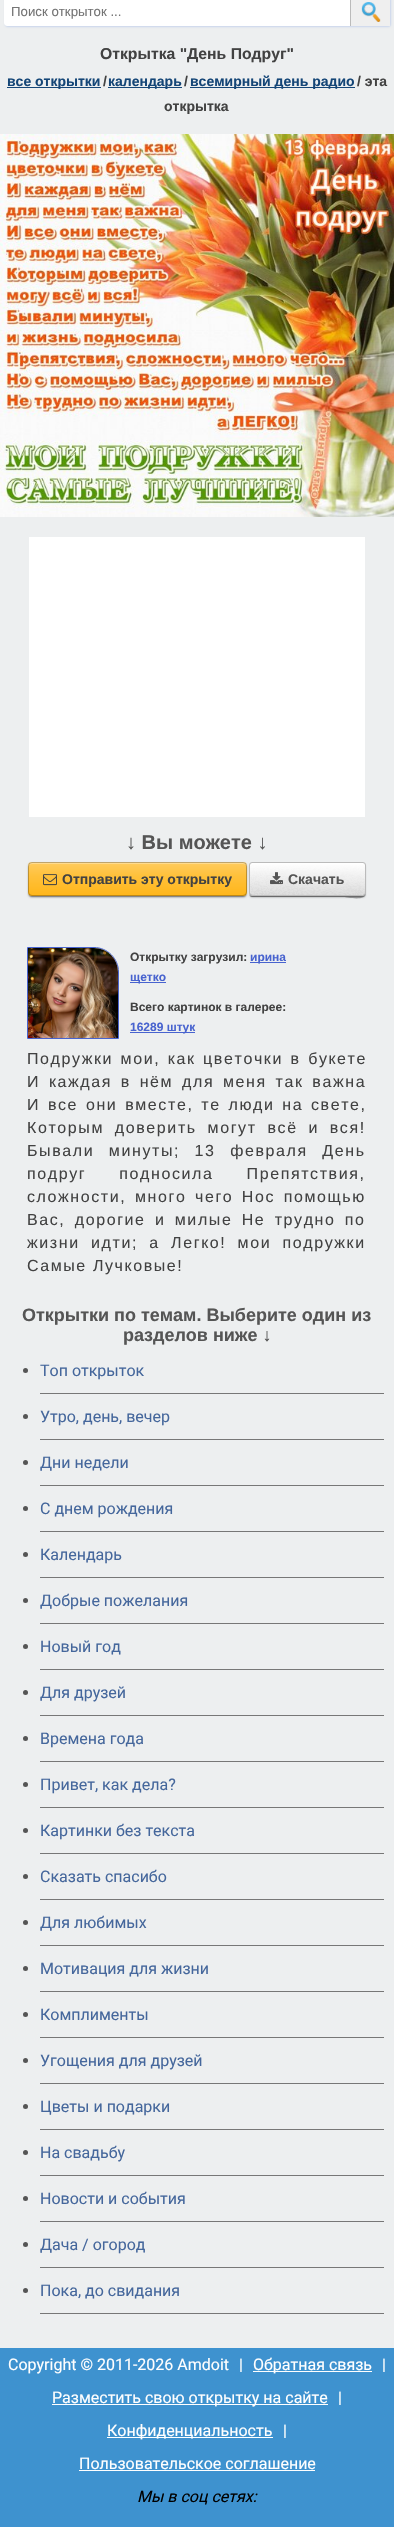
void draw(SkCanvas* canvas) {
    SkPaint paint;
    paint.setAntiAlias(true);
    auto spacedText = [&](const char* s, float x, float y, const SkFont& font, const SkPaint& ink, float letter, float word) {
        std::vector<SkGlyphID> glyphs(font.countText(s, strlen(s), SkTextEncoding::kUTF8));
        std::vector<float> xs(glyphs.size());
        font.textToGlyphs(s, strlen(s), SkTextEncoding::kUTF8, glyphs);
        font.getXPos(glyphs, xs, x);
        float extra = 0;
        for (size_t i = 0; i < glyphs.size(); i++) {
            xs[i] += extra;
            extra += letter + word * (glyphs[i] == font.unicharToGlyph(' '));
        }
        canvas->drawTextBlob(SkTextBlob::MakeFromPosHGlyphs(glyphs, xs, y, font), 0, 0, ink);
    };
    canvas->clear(0xFFEDEFF0);
    paint.setColor(0xFFC9D5EC);
    paint.setMaskFilter(SkMaskFilter::MakeBlur(kNormal_SkBlurStyle, 1));
    canvas->drawRoundRect(SkRect::MakeXYWH(5, -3, 386, 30), 3, 3, paint);
    paint.setMaskFilter(nullptr);
    paint.setColor(0xFFFFFFFF);
    canvas->drawPath(SkPathBuilder().moveTo(7, -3).lineTo(390, -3).lineTo(390, 26).lineTo(7, 26).cubicTo(5.5f, 26, 4, 24.5f, 4, 23).lineTo(4, 0).cubicTo(4, -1.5f, 5.5f, -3, 7, -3).close().detach(), paint);
    SkFont font1(fontMgr->matchFamilyStyle("Liberation Sans", SkFontStyle::Normal()), 13.25f);
    font1.setSubpixel(true);
    paint.setColor(0xFF757575);
    canvas->drawString("Поиск открыток ...", 11, 16, font1, paint);
    paint.setColor(0xFFEFEFEF);
    canvas->drawRect(SkRect::MakeXYWH(351, 0, 39, 26), paint);
    canvas->drawImageRect(SkImages::DeferredFromEncodedData(SkData::MakeFromFileName("img1.png")), SkRect::MakeXYWH(361, 2, 20, 20), SkSamplingOptions());
    paint.setColor(0xFFBBBBBB);
    canvas->drawRect(SkRect::MakeXYWH(350, 0, 1, 26), paint);
    SkFont font2(fontMgr->matchFamilyStyle("Liberation Sans", SkFontStyle::Bold()), 15.75f);
    font2.setSubpixel(true);
    paint.setColor(0xFF424242);
    canvas->drawString("Открытка \"День Подруг\"", 100, 59, font2, paint);
    paint.setColor(0xFF154677);
    canvas->drawRect(SkRect::MakeXYWH(7, 87, 94, 1), paint);
    SkFont font3(fontMgr->matchFamilyStyle("Liberation Sans", SkFontStyle::Bold()), 14);
    font3.setSubpixel(true);
    canvas->drawString("все открытки", 7, 86, font3, paint);
    paint.setColor(0xFF424242);
    canvas->drawString("/", 103, 86, font3, paint);
    paint.setColor(0xFF154677);
    canvas->drawRect(SkRect::MakeXYWH(108, 87, 74, 1), paint);
    canvas->drawString("календарь", 108, 86, font3, paint);
    paint.setColor(0xFF424242);
    canvas->drawString("/", 184, 86, font3, paint);
    paint.setColor(0xFF154677);
    canvas->drawRect(SkRect::MakeXYWH(190, 87, 165, 1), paint);
    canvas->drawString("всемирный день радио", 190, 86, font3, paint);
    paint.setColor(0xFF424242);
    canvas->drawString("/ эта", 357, 86, font3, paint);
    canvas->drawString("открытка", 164, 111, font3, paint);
    canvas->drawImageRect(SkImages::DeferredFromEncodedData(SkData::MakeFromFileName("img2.png")), SkRect::MakeXYWH(0, 134, 394, 383), SkSamplingOptions());
    paint.setColor(0xFFFFFFFF);
    canvas->drawRect(SkRect::MakeXYWH(29, 537, 336, 280), paint);
    SkFont font4(fontMgr->matchFamilyStyle("Liberation Sans", SkFontStyle::Bold()), 20);
    font4.setSubpixel(true);
    paint.setColor(0xFF555555);
    canvas->drawString("↓ Вы можете ↓", 126, 849, font4, paint);
    paint.setColor(0x80000000);
    paint.setMaskFilter(SkMaskFilter::MakeBlur(kNormal_SkBlurStyle, 1));
    canvas->drawRoundRect(SkRect::MakeXYWH(29, 865, 217, 32), 3, 3, paint);
    paint.setMaskFilter(nullptr);
    paint.setColor(0x26000000);
    paint.setMaskFilter(SkMaskFilter::MakeBlur(kNormal_SkBlurStyle, 1));
    canvas->drawRoundRect(SkRect::MakeXYWH(28, 863, 219, 34), 4, 4, paint);
    paint.setMaskFilter(nullptr);
    paint.setColor(0xFFFFB619);
    canvas->drawRoundRect(SkRect::MakeXYWH(28, 862, 219, 34), 4, 4, paint);
    {
        const SkColor colors[] = {0x4DFFFFFF, 0x26FFFFFF, 0x00FFFFFF};
        const float stops[] = {0, 0.4f, 1};
        const SkPoint ends[] = {{138, 862}, {138, 896}};
        paint.setShader(SkGradientShader::MakeLinear(ends, colors, stops, 3, SkTileMode::kClamp));
        paint.setAlpha(255);
    }
    canvas->drawRoundRect(SkRect::MakeXYWH(28, 862, 219, 34), 4, 4, paint);
    paint.setShader(nullptr);
    paint.setColor(0x4DFFFFFF);
    canvas->drawPath(SkPathBuilder().moveTo(32, 864).lineTo(243, 864).cubicTo(245, 864, 247, 866, 247, 868).cubicTo(247, 865, 247, 863, 244, 862).lineTo(31, 862).cubicTo(28, 863, 28, 865, 28, 868).cubicTo(28, 866, 30, 864, 32, 864).close().detach(), paint);
    paint.setStyle(SkPaint::kStroke_Style);
    paint.setStrokeWidth(1);
    paint.setColor(0x40000000);
    canvas->drawRoundRect(SkRect::MakeXYWH(28.5f, 862.5f, 218, 33), 3.5f, 3.5f, paint);
    canvas->drawImageRect(SkImages::DeferredFromEncodedData(SkData::MakeFromFileName("img3.png")), SkRect::MakeXYWH(43, 874, 14, 12), SkSamplingOptions());
    paint.setStyle(SkPaint::kFill_Style);
    paint.setColor(0xFF424242);
    canvas->drawString("Отправить эту открытку", 62, 884, font3, paint);
    paint.setColor(0x80000000);
    paint.setMaskFilter(SkMaskFilter::MakeBlur(kNormal_SkBlurStyle, 1));
    canvas->drawRoundRect(SkRect::MakeXYWH(250, 865, 115, 32), 2, 2, paint);
    paint.setMaskFilter(nullptr);
    paint.setColor(0x4D000000);
    canvas->drawPath(SkPathBuilder().moveTo(249, 893).cubicTo(249, 895, 250, 897, 252, 897).lineTo(344, 897).cubicTo(346, 897, 366, 902, 366, 893).lineTo(365, 895).lineTo(363, 896).lineTo(252, 896).cubicTo(250, 896, 249, 895, 249, 893).close().detach(), paint);
    paint.setColor(0xFFDDDDDD);
    canvas->drawRoundRect(SkRect::MakeXYWH(250, 863, 115, 32), 2, 2, paint);
    canvas->drawImageRect(SkImages::DeferredFromEncodedData(SkData::MakeFromFileName("img4.png")), SkRect::MakeXYWH(250, 863, 115, 32), SkSamplingOptions());
    paint.setStyle(SkPaint::kStroke_Style);
    paint.setColor(0xFFBBBBBB);
    canvas->drawRoundRect(SkRect::MakeXYWH(249.5f, 862.5f, 116, 33), 2.5f, 2.5f, paint);
    canvas->drawImageRect(SkImages::DeferredFromEncodedData(SkData::MakeFromFileName("img5.png")), SkRect::MakeXYWH(270, 872, 13, 13), SkSamplingOptions());
    paint.setStyle(SkPaint::kFill_Style);
    paint.setColor(0xFF555555);
    canvas->drawString("Скачать", 288, 884, font3, paint);
    paint.setStyle(SkPaint::kStroke_Style);
    paint.setColor(0xFF4863CF);
    canvas->drawPath(SkPathBuilder().moveTo(27.5f, 947.5f).lineTo(94, 947.5f).cubicTo(107.5f, 947.5f, 118.5f, 958.5f, 118.5f, 972).lineTo(118.5f, 1038.5f).lineTo(27.5f, 1038.5f).close().detach(), paint);
    canvas->drawImageRect(SkImages::DeferredFromEncodedData(SkData::MakeFromFileName("img6.png")), SkRect::MakeXYWH(28, 948, 90, 90), SkSamplingOptions());
    SkFont font5(fontMgr->matchFamilyStyle("Liberation Sans", SkFontStyle::Bold()), 12);
    font5.setSubpixel(true);
    paint.setStyle(SkPaint::kFill_Style);
    paint.setColor(0xFF424242);
    canvas->drawString("Открытку загрузил:", 130, 961, font5, paint);
    paint.setColor(0xFF4863CF);
    canvas->drawRect(SkRect::MakeXYWH(250, 962, 36, 1), paint);
    canvas->drawString("ирина", 250, 961, font5, paint);
    canvas->drawRect(SkRect::MakeXYWH(130, 982, 36, 1), paint);
    canvas->drawString("щетко", 130, 981, font5, paint);
    paint.setColor(0xFF424242);
    canvas->drawString("Всего картинок в галерее:", 130, 1011, font5, paint);
    paint.setColor(0xFF4863CF);
    canvas->drawRect(SkRect::MakeXYWH(130, 1032, 65, 1), paint);
    canvas->drawString("16289 штук", 130, 1031, font5, paint);
    SkFont font6(fontMgr->matchFamilyStyle("Liberation Sans", SkFontStyle::Normal()), 16);
    font6.setSubpixel(true);
    paint.setColor(0xFF424242);
    spacedText("Подружки мои, как цветочки в букете", 27, 1064, font6, paint, 1.6f, 1.5f);
    spacedText("И каждая в нём для меня так важна", 27, 1087, font6, paint, 1.6f, 2.75f);
    spacedText("И все они вместе, те люди на свете,", 27, 1110, font6, paint, 1.6f, 1.75f);
    spacedText("Которым доверить могут всё и вся!", 27, 1133, font6, paint, 1.6f, 4.75f);
    spacedText("Бывали минуты; 13 февраля День", 27, 1156, font6, paint, 1.6f, 8.5f);
    spacedText("подруг подносила Препятствия,", 27, 1179, font6, paint, 1.6f, 27);
    spacedText("сложности, много чего Нос помощью", 27, 1202, font6, paint, 1.6f, 2.5f);
    spacedText("Вас, дорогие и милые Не трудно по", 27, 1225, font6, paint, 1.6f, 3.25f);
    spacedText("жизни идти; а Легко! мои подружки", 27, 1248, font6, paint, 1.6f, 5.25f);
    spacedText("Самые Лучковые!", 27, 1271, font6, paint, 1.6f, 0);
    SkFont font7(fontMgr->matchFamilyStyle("Liberation Sans", SkFontStyle::Bold()), 18);
    font7.setSubpixel(true);
    paint.setColor(0xFF555555);
    canvas->drawString("Открытки по темам. Выберите один из", 22, 1321, font7, paint);
    canvas->drawString("разделов ниже ↓", 123, 1341, font7, paint);
    paint.setColor(0xFF777777);
    canvas->drawRect(SkRect::MakeXYWH(40, 1393, 344, 1), paint);
    paint.setColor(0xFF555555);
    canvas->drawCircle(25.5f, 1370.5f, 2.5f, paint);
    SkFont font8(fontMgr->matchFamilyStyle("Roboto", SkFontStyle::Normal()), 16);
    font8.setSubpixel(true);
    paint.setColor(0xFF45679C);
    canvas->drawString("Топ открыток", 40, 1376, font8, paint);
    paint.setColor(0xFF777777);
    canvas->drawRect(SkRect::MakeXYWH(40, 1439, 344, 1), paint);
    paint.setColor(0xFF555555);
    canvas->drawCircle(25.5f, 1416.5f, 2.5f, paint);
    paint.setColor(0xFF45679C);
    canvas->drawString("Утро, день, вечер", 40, 1422, font8, paint);
    paint.setColor(0xFF777777);
    canvas->drawRect(SkRect::MakeXYWH(40, 1485, 344, 1), paint);
    paint.setColor(0xFF555555);
    canvas->drawCircle(25.5f, 1462.5f, 2.5f, paint);
    paint.setColor(0xFF45679C);
    canvas->drawString("Дни недели", 40, 1468, font8, paint);
    paint.setColor(0xFF777777);
    canvas->drawRect(SkRect::MakeXYWH(40, 1531, 344, 1), paint);
    paint.setColor(0xFF555555);
    canvas->drawCircle(25.5f, 1508.5f, 2.5f, paint);
    paint.setColor(0xFF45679C);
    canvas->drawString("C днем рождения", 40, 1514, font8, paint);
    paint.setColor(0xFF777777);
    canvas->drawRect(SkRect::MakeXYWH(40, 1577, 344, 1), paint);
    paint.setColor(0xFF555555);
    canvas->drawCircle(25.5f, 1554.5f, 2.5f, paint);
    paint.setColor(0xFF45679C);
    canvas->drawString("Календарь", 40, 1560, font8, paint);
    paint.setColor(0xFF777777);
    canvas->drawRect(SkRect::MakeXYWH(40, 1623, 344, 1), paint);
    paint.setColor(0xFF555555);
    canvas->drawCircle(25.5f, 1600.5f, 2.5f, paint);
    paint.setColor(0xFF45679C);
    canvas->drawString("Добрые пожелания", 40, 1606, font8, paint);
    paint.setColor(0xFF777777);
    canvas->drawRect(SkRect::MakeXYWH(40, 1669, 344, 1), paint);
    paint.setColor(0xFF555555);
    canvas->drawCircle(25.5f, 1646.5f, 2.5f, paint);
    paint.setColor(0xFF45679C);
    canvas->drawString("Новый год", 40, 1652, font8, paint);
    paint.setColor(0xFF777777);
    canvas->drawRect(SkRect::MakeXYWH(40, 1715, 344, 1), paint);
    paint.setColor(0xFF555555);
    canvas->drawCircle(25.5f, 1692.5f, 2.5f, paint);
    paint.setColor(0xFF45679C);
    canvas->drawString("Для друзей", 40, 1698, font8, paint);
    paint.setColor(0xFF777777);
    canvas->drawRect(SkRect::MakeXYWH(40, 1761, 344, 1), paint);
    paint.setColor(0xFF555555);
    canvas->drawCircle(25.5f, 1738.5f, 2.5f, paint);
    paint.setColor(0xFF45679C);
    canvas->drawString("Времена года", 40, 1744, font8, paint);
    paint.setColor(0xFF777777);
    canvas->drawRect(SkRect::MakeXYWH(40, 1807, 344, 1), paint);
    paint.setColor(0xFF555555);
    canvas->drawCircle(25.5f, 1784.5f, 2.5f, paint);
    paint.setColor(0xFF45679C);
    canvas->drawString("Привет, как дела?", 40, 1790, font8, paint);
    paint.setColor(0xFF777777);
    canvas->drawRect(SkRect::MakeXYWH(40, 1853, 344, 1), paint);
    paint.setColor(0xFF555555);
    canvas->drawCircle(25.5f, 1830.5f, 2.5f, paint);
    paint.setColor(0xFF45679C);
    canvas->drawString("Картинки без текста", 40, 1836, font8, paint);
    paint.setColor(0xFF777777);
    canvas->drawRect(SkRect::MakeXYWH(40, 1899, 344, 1), paint);
    paint.setColor(0xFF555555);
    canvas->drawCircle(25.5f, 1876.5f, 2.5f, paint);
    paint.setColor(0xFF45679C);
    canvas->drawString("Сказать спасибо", 40, 1882, font8, paint);
    paint.setColor(0xFF777777);
    canvas->drawRect(SkRect::MakeXYWH(40, 1945, 344, 1), paint);
    paint.setColor(0xFF555555);
    canvas->drawCircle(25.5f, 1922.5f, 2.5f, paint);
    paint.setColor(0xFF45679C);
    canvas->drawString("Для любимых", 40, 1928, font8, paint);
    paint.setColor(0xFF777777);
    canvas->drawRect(SkRect::MakeXYWH(40, 1991, 344, 1), paint);
    paint.setColor(0xFF555555);
    canvas->drawCircle(25.5f, 1968.5f, 2.5f, paint);
    paint.setColor(0xFF45679C);
    canvas->drawString("Мотивация для жизни", 40, 1974, font8, paint);
    paint.setColor(0xFF777777);
    canvas->drawRect(SkRect::MakeXYWH(40, 2037, 344, 1), paint);
    paint.setColor(0xFF555555);
    canvas->drawCircle(25.5f, 2014.5f, 2.5f, paint);
    paint.setColor(0xFF45679C);
    canvas->drawString("Комплименты", 40, 2020, font8, paint);
    paint.setColor(0xFF777777);
    canvas->drawRect(SkRect::MakeXYWH(40, 2083, 344, 1), paint);
    paint.setColor(0xFF555555);
    canvas->drawCircle(25.5f, 2060.5f, 2.5f, paint);
    paint.setColor(0xFF45679C);
    canvas->drawString("Угощения для друзей", 40, 2066, font8, paint);
    paint.setColor(0xFF777777);
    canvas->drawRect(SkRect::MakeXYWH(40, 2129, 344, 1), paint);
    paint.setColor(0xFF555555);
    canvas->drawCircle(25.5f, 2106.5f, 2.5f, paint);
    paint.setColor(0xFF45679C);
    canvas->drawString("Цветы и подарки", 40, 2112, font8, paint);
    paint.setColor(0xFF777777);
    canvas->drawRect(SkRect::MakeXYWH(40, 2175, 344, 1), paint);
    paint.setColor(0xFF555555);
    canvas->drawCircle(25.5f, 2152.5f, 2.5f, paint);
    paint.setColor(0xFF45679C);
    canvas->drawString("На свадьбу", 40, 2158, font8, paint);
    paint.setColor(0xFF777777);
    canvas->drawRect(SkRect::MakeXYWH(40, 2221, 344, 1), paint);
    paint.setColor(0xFF555555);
    canvas->drawCircle(25.5f, 2198.5f, 2.5f, paint);
    paint.setColor(0xFF45679C);
    canvas->drawString("Новости и события", 40, 2204, font8, paint);
    paint.setColor(0xFF777777);
    canvas->drawRect(SkRect::MakeXYWH(40, 2267, 344, 1), paint);
    paint.setColor(0xFF555555);
    canvas->drawCircle(25.5f, 2244.5f, 2.5f, paint);
    paint.setColor(0xFF45679C);
    canvas->drawString("Дача / огород", 40, 2250, font8, paint);
    paint.setColor(0xFF777777);
    canvas->drawRect(SkRect::MakeXYWH(40, 2313, 344, 1), paint);
    paint.setColor(0xFF555555);
    canvas->drawCircle(25.5f, 2290.5f, 2.5f, paint);
    paint.setColor(0xFF45679C);
    canvas->drawString("Пока, до свидания", 40, 2296, font8, paint);
    paint.setColor(0xFF3E92CF);
    canvas->drawRect(SkRect::MakeXYWH(0, 2348, 394, 179), paint);
    paint.setColor(0xFFFFFFFF);
    canvas->drawString("Copyright © 2011-2026 Amdoit", 8, 2370, font8, paint);
    canvas->drawString("|", 239, 2370, font8, paint);
    canvas->drawRect(SkRect::MakeXYWH(253, 2371, 119, 1), paint);
    canvas->drawString("Обратная связь", 253, 2370, font8, paint);
    canvas->drawString("|", 382, 2370, font8, paint);
    canvas->drawRect(SkRect::MakeXYWH(52, 2404, 276, 1), paint);
    canvas->drawString("Разместить свою открытку на сайте", 52, 2403, font8, paint);
    canvas->drawString("|", 338, 2403, font8, paint);
    canvas->drawRect(SkRect::MakeXYWH(107, 2437, 166, 1), paint);
    canvas->drawString("Конфиденциальность", 107, 2436, font8, paint);
    canvas->drawString("|", 283, 2436, font8, paint);
    canvas->drawString("Пользовательское соглашение", 79, 2469, font8, paint);
    canvas->drawRect(SkRect::MakeXYWH(79, 2470, 236, 1), paint);
    SkFont font9(fontMgr->matchFamilyStyle("Roboto", SkFontStyle::Italic()), 16);
    font9.setSubpixel(true);
    paint.setColor(0xFF000000);
    canvas->drawString("Мы в соц сетях:", 137, 2502, font9, paint);
}
